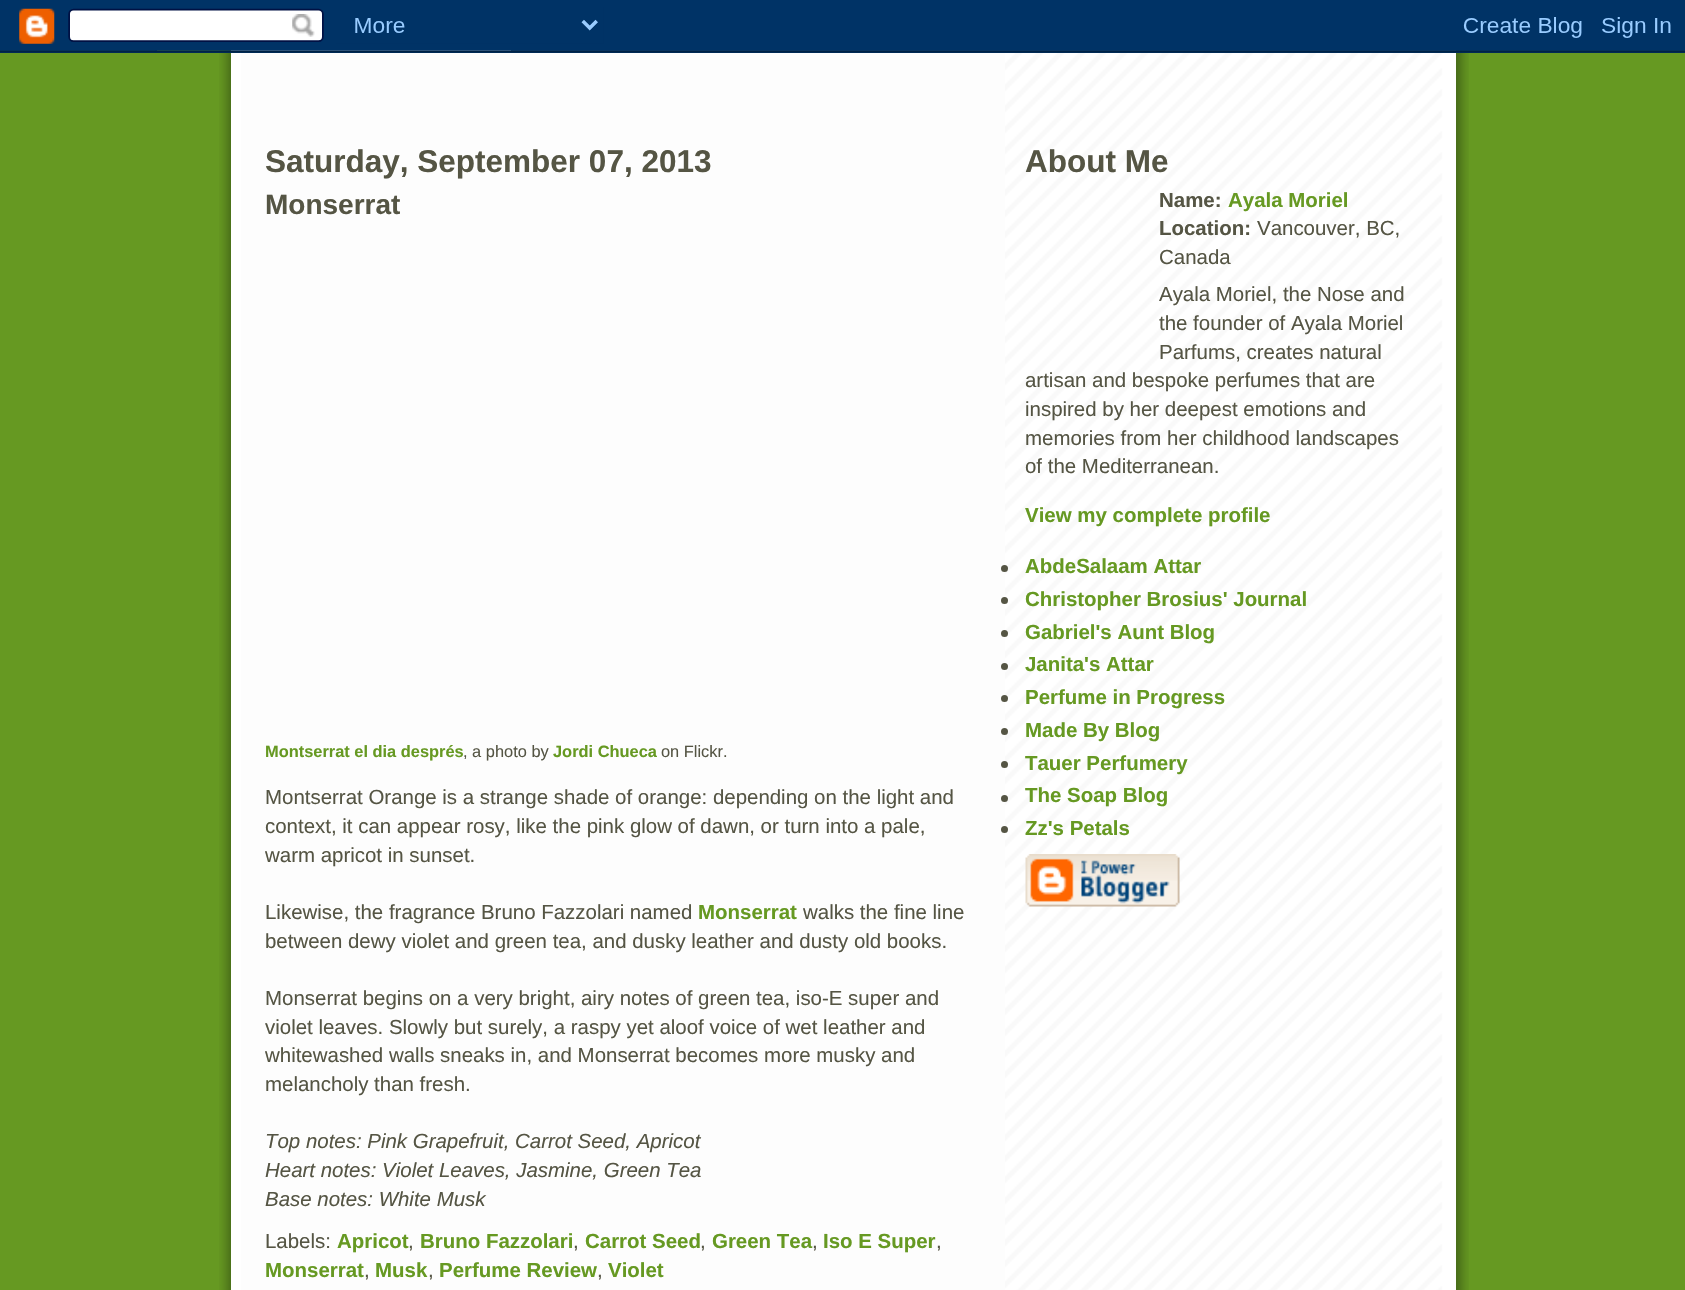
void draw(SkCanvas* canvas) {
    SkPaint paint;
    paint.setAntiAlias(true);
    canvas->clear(0xFF669922);
    canvas->drawImageRect(SkImages::DeferredFromEncodedData(SkData::MakeFromFileName("img1.png")), SkRect::MakeXYWH(219, 50, 1250, 1240), SkSamplingOptions());
    paint.setColor(0xFFFFFFFF);
    canvas->drawRect(SkRect::MakeXYWH(231, 50, 10, 1240), paint);
    canvas->drawImageRect(SkImages::DeferredFromEncodedData(SkData::MakeFromFileName("img3.png")), SkRect::MakeXYWH(1005, 50, 451, 1240), SkSamplingOptions());
    canvas->drawImageRect(SkImages::DeferredFromEncodedData(SkData::MakeFromFileName("img2.png")), SkRect::MakeXYWH(0, 0, 1685, 53), SkSamplingOptions());
    SkFont font1(fontMgr->matchFamilyStyle("Liberation Sans", SkFontStyle::Bold()), 31.5f);
    font1.setSubpixel(true);
    paint.setColor(0xFF555544);
    canvas->drawString("Saturday, September 07, 2013", 265, 172, font1, paint);
    SkFont font2(fontMgr->matchFamilyStyle("Liberation Sans", SkFontStyle::Bold()), 28);
    font2.setSubpixel(true);
    canvas->drawString("Monserrat", 265, 214, font2, paint);
    SkFont font3(fontMgr->matchFamilyStyle("Liberation Sans", SkFontStyle::Bold()), 16.4f);
    font3.setSubpixel(true);
    paint.setColor(0xFF669922);
    canvas->drawString("Montserrat el dia després", 265, 757, font3, paint);
    SkFont font4(fontMgr->matchFamilyStyle("Liberation Sans", SkFontStyle::Normal()), 16.4f);
    font4.setSubpixel(true);
    paint.setColor(0xFF555544);
    canvas->drawString(", a photo by", 463, 757, font4, paint);
    paint.setColor(0xFF669922);
    canvas->drawString("Jordi Chueca", 553, 757, font3, paint);
    paint.setColor(0xFF555544);
    canvas->drawString("on Flickr.", 661, 757, font4, paint);
    SkFont font5(fontMgr->matchFamilyStyle("Liberation Sans", SkFontStyle::Normal()), 20.45f);
    font5.setSubpixel(true);
    canvas->drawString("Montserrat Orange is a strange shade of orange: depending on the light and", 265, 804, font5, paint);
    canvas->drawString("context, it can appear rosy, like the pink glow of dawn, or turn into a pale,", 265, 833, font5, paint);
    canvas->drawString("warm apricot in sunset.", 265, 862, font5, paint);
    canvas->drawString("Likewise, the fragrance Bruno Fazzolari named", 265, 919, font5, paint);
    SkFont font6(fontMgr->matchFamilyStyle("Liberation Sans", SkFontStyle::Bold()), 20.45f);
    font6.setSubpixel(true);
    paint.setColor(0xFF669922);
    canvas->drawString("Monserrat", 698, 919, font6, paint);
    paint.setColor(0xFF555544);
    canvas->drawString("walks the fine line", 803, 919, font5, paint);
    canvas->drawString("between dewy violet and green tea, and dusky leather and dusty old books.", 265, 948, font5, paint);
    canvas->drawString("Monserrat begins on a very bright, airy notes of green tea, iso-E super and", 265, 1005, font5, paint);
    canvas->drawString("violet leaves. Slowly but surely, a raspy yet aloof voice of wet leather and", 265, 1034, font5, paint);
    canvas->drawString("whitewashed walls sneaks in, and Monserrat becomes more musky and", 265, 1062, font5, paint);
    canvas->drawString("melancholy than fresh.", 265, 1091, font5, paint);
    SkFont font7(fontMgr->matchFamilyStyle("Liberation Sans", SkFontStyle::Italic()), 20.45f);
    font7.setSubpixel(true);
    canvas->drawString("Top notes: Pink Grapefruit, Carrot Seed, Apricot", 265, 1148, font7, paint);
    canvas->drawString("Heart notes: Violet Leaves, Jasmine, Green Tea", 265, 1177, font7, paint);
    canvas->drawString("Base notes: White Musk", 265, 1206, font7, paint);
    canvas->drawString("Labels:", 265, 1248, font5, paint);
    paint.setColor(0xFF669922);
    canvas->drawString("Apricot", 337, 1248, font6, paint);
    paint.setColor(0xFF555544);
    canvas->drawString(",", 408, 1248, font5, paint);
    paint.setColor(0xFF669922);
    canvas->drawString("Bruno Fazzolari", 420, 1248, font6, paint);
    paint.setColor(0xFF555544);
    canvas->drawString(",", 573, 1248, font5, paint);
    paint.setColor(0xFF669922);
    canvas->drawString("Carrot Seed", 585, 1248, font6, paint);
    paint.setColor(0xFF555544);
    canvas->drawString(",", 700, 1248, font5, paint);
    paint.setColor(0xFF669922);
    canvas->drawString("Green Tea", 712, 1248, font6, paint);
    paint.setColor(0xFF555544);
    canvas->drawString(",", 812, 1248, font5, paint);
    paint.setColor(0xFF669922);
    canvas->drawString("Iso E Super", 823, 1248, font6, paint);
    paint.setColor(0xFF555544);
    canvas->drawString(",", 936, 1248, font5, paint);
    paint.setColor(0xFF669922);
    canvas->drawString("Monserrat", 265, 1277, font6, paint);
    paint.setColor(0xFF555544);
    canvas->drawString(",", 364, 1277, font5, paint);
    paint.setColor(0xFF669922);
    canvas->drawString("Musk", 375, 1277, font6, paint);
    paint.setColor(0xFF555544);
    canvas->drawString(",", 428, 1277, font5, paint);
    paint.setColor(0xFF669922);
    canvas->drawString("Perfume Review", 439, 1277, font6, paint);
    paint.setColor(0xFF555544);
    canvas->drawString(",", 597, 1277, font5, paint);
    paint.setColor(0xFF669922);
    canvas->drawString("Violet", 608, 1277, font6, paint);
    paint.setColor(0xFF555544);
    canvas->drawString("About Me", 1025, 172, font1, paint);
    canvas->drawString("Name:", 1159, 207, font6, paint);
    paint.setColor(0xFF669922);
    canvas->drawString("Ayala Moriel", 1228, 207, font6, paint);
    paint.setColor(0xFF555544);
    canvas->drawString("Location:", 1159, 235, font6, paint);
    canvas->drawString("Vancouver, BC,", 1257, 235, font5, paint);
    canvas->drawString("Canada", 1159, 264, font5, paint);
    canvas->drawString("Ayala Moriel, the Nose and", 1159, 301, font5, paint);
    canvas->drawString("the founder of Ayala Moriel", 1159, 330, font5, paint);
    canvas->drawString("Parfums, creates natural", 1159, 359, font5, paint);
    canvas->drawString("artisan and bespoke perfumes that are", 1025, 387, font5, paint);
    canvas->drawString("inspired by her deepest emotions and", 1025, 416, font5, paint);
    canvas->drawString("memories from her childhood landscapes", 1025, 445, font5, paint);
    canvas->drawString("of the Mediterranean.", 1025, 473, font5, paint);
    paint.setColor(0xFF669922);
    canvas->drawString("View my complete profile", 1025, 522, font6, paint);
    paint.setColor(0xFF555544);
    canvas->drawCircle(1004.5f, 568.5f, 3.5f, paint);
    paint.setColor(0xFF669922);
    canvas->drawString("AbdeSalaam Attar", 1025, 573, font6, paint);
    paint.setColor(0xFF555544);
    canvas->drawCircle(1004.5f, 600.5f, 3.5f, paint);
    paint.setColor(0xFF669922);
    canvas->drawString("Christopher Brosius' Journal", 1025, 606, font6, paint);
    paint.setColor(0xFF555544);
    canvas->drawCircle(1004.5f, 633.5f, 3.5f, paint);
    paint.setColor(0xFF669922);
    canvas->drawString("Gabriel's Aunt Blog", 1025, 639, font6, paint);
    paint.setColor(0xFF555544);
    canvas->drawCircle(1004.5f, 666.5f, 3.5f, paint);
    paint.setColor(0xFF669922);
    canvas->drawString("Janita's Attar", 1025, 671, font6, paint);
    paint.setColor(0xFF555544);
    canvas->drawCircle(1004.5f, 698.5f, 3.5f, paint);
    paint.setColor(0xFF669922);
    canvas->drawString("Perfume in Progress", 1025, 704, font6, paint);
    paint.setColor(0xFF555544);
    canvas->drawCircle(1004.5f, 731.5f, 3.5f, paint);
    paint.setColor(0xFF669922);
    canvas->drawString("Made By Blog", 1025, 737, font6, paint);
    paint.setColor(0xFF555544);
    canvas->drawCircle(1004.5f, 764.5f, 3.5f, paint);
    paint.setColor(0xFF669922);
    canvas->drawString("Tauer Perfumery", 1025, 770, font6, paint);
    paint.setColor(0xFF555544);
    canvas->drawCircle(1004.5f, 798.5f, 3.5f, paint);
    paint.setColor(0xFF669922);
    canvas->drawString("The Soap Blog", 1025, 802, font6, paint);
    paint.setColor(0xFF555544);
    canvas->drawCircle(1004.5f, 829.5f, 3.5f, paint);
    paint.setColor(0xFF669922);
    canvas->drawString("Zz's Petals", 1025, 835, font6, paint);
    canvas->drawImageRect(SkImages::DeferredFromEncodedData(SkData::MakeFromFileName("img4.png")), SkRect::MakeXYWH(1025, 854, 155, 53), SkSamplingOptions());
}
